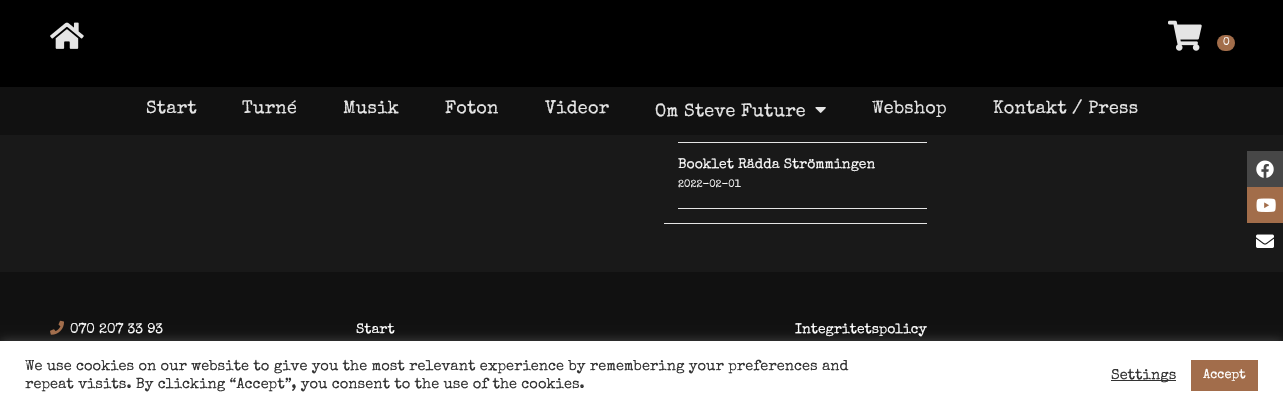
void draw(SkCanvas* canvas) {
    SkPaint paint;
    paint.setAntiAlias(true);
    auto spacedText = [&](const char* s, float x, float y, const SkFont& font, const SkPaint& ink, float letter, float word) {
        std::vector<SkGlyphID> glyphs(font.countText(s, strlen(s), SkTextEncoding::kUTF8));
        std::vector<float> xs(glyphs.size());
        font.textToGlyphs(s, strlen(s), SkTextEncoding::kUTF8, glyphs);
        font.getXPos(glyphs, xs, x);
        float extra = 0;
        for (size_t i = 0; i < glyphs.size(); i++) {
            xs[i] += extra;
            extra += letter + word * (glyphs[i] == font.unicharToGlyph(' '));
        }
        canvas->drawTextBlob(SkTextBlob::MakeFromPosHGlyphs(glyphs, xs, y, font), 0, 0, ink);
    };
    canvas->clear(0xFF191919);
    paint.setColor(0xFF000000);
    canvas->drawRect(SkRect::MakeXYWH(0, 0, 1283, 87), paint);
    canvas->drawImageRect(SkImages::DeferredFromEncodedData(SkData::MakeFromFileName("img1.png")), SkRect::MakeXYWH(50, 22, 34, 27), SkSamplingOptions());
    canvas->drawImageRect(SkImages::DeferredFromEncodedData(SkData::MakeFromFileName("img2.png")), SkRect::MakeXYWH(1168, 20, 34, 31), SkSamplingOptions());
    paint.setColor(0xFFA26D4A);
    canvas->drawRoundRect(SkRect::MakeXYWH(1217, 35, 18, 16), 8, 8, paint);
    SkFont font1(fontMgr->matchFamilyStyle("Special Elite", SkFontStyle::Normal()), 11);
    font1.setSubpixel(true);
    paint.setColor(0xFFFFFFFF);
    spacedText("0", 1223, 45, font1, paint, 0.25f, 0);
    paint.setColor(0xFF474747);
    canvas->drawRect(SkRect::MakeXYWH(1247, 151, 36, 36), paint);
    canvas->drawImageRect(SkImages::DeferredFromEncodedData(SkData::MakeFromFileName("img3.png")), SkRect::MakeXYWH(1256, 160, 18, 18), SkSamplingOptions());
    paint.setColor(0xFFA26D4A);
    canvas->drawRect(SkRect::MakeXYWH(1247, 187, 36, 36), paint);
    canvas->drawImageRect(SkImages::DeferredFromEncodedData(SkData::MakeFromFileName("img4.png")), SkRect::MakeXYWH(1256, 198, 20, 14), SkSamplingOptions());
    canvas->drawImageRect(SkImages::DeferredFromEncodedData(SkData::MakeFromFileName("img5.png")), SkRect::MakeXYWH(1256, 234, 18, 14), SkSamplingOptions());
    paint.setColor(0xFF111111);
    canvas->drawRect(SkRect::MakeXYWH(0, 87, 1283, 48), paint);
    SkFont font2(fontMgr->matchFamilyStyle("Special Elite", SkFontStyle::Normal()), 18);
    font2.setSubpixel(true);
    paint.setColor(0xFFE5E5E5);
    spacedText("Start", 146, 113, font2, paint, 0.25f, 0);
    spacedText("Turné", 242, 113, font2, paint, 0.25f, 0);
    spacedText("Musik", 343, 113, font2, paint, 0.25f, 0);
    spacedText("Foton", 445, 113, font2, paint, 0.25f, 0);
    spacedText("Videor", 545, 113, font2, paint, 0.25f, 0);
    spacedText("Om Steve Future", 655, 116, font2, paint, 0.25f, 0);
    canvas->drawImageRect(SkImages::DeferredFromEncodedData(SkData::MakeFromFileName("img6.png")), SkRect::MakeXYWH(815, 107, 11, 6), SkSamplingOptions());
    spacedText("Webshop", 872, 113, font2, paint, 0.25f, 0);
    spacedText("Kontakt / Press", 993, 113, font2, paint, 0.25f, 0);
    canvas->drawRect(SkRect::MakeXYWH(664, 223, 263, 1), paint);
    canvas->drawRect(SkRect::MakeXYWH(678, 142, 249, 1), paint);
    canvas->drawRect(SkRect::MakeXYWH(678, 208, 249, 1), paint);
    SkFont font3(fontMgr->matchFamilyStyle("Special Elite", SkFontStyle::Normal()), 14);
    font3.setSubpixel(true);
    paint.setColor(0xFFF9F9F9);
    canvas->drawString("Booklet Rädda Strömmingen", 678, 168, font3, paint);
    SkFont font4(fontMgr->matchFamilyStyle("Special Elite", SkFontStyle::Normal()), 10.5f);
    font4.setSubpixel(true);
    canvas->drawString("2022-02-01", 678, 187, font4, paint);
    paint.setColor(0xFF111111);
    canvas->drawRect(SkRect::MakeXYWH(0, 272, 1283, 69), paint);
    canvas->drawImageRect(SkImages::DeferredFromEncodedData(SkData::MakeFromFileName("img7.png")), SkRect::MakeXYWH(50, 320, 14, 15), SkSamplingOptions());
    paint.setColor(0xFFFFFFFF);
    canvas->drawString("070 207 33 93", 70, 333, font3, paint);
    canvas->drawString("Start", 356, 333, font3, paint);
    canvas->drawString("Integritetspolicy", 795, 333, font3, paint);
    paint.setColor(0x4DACABAB);
    paint.setMaskFilter(SkMaskFilter::MakeBlur(kNormal_SkBlurStyle, 5));
    canvas->drawRect(SkRect::MakeXYWH(0, 340, 1283, 69), paint);
    paint.setMaskFilter(nullptr);
    paint.setColor(0xFFFFFFFF);
    canvas->drawRect(SkRect::MakeXYWH(0, 341, 1283, 69), paint);
    SkFont font5(fontMgr->matchFamilyStyle("Special Elite", SkFontStyle::Normal()), 14.67f);
    font5.setSubpixel(true);
    paint.setColor(0xFF333333);
    canvas->drawString("We use cookies on our website to give you the most relevant experience by remembering your preferences and", 25, 370, font5, paint);
    canvas->drawString("repeat visits. By clicking “Accept”, you consent to the use of the cookies.", 25, 388, font5, paint);
    canvas->drawRect(SkRect::MakeXYWH(1111, 380, 65, 1), paint);
    canvas->drawString("Settings", 1111, 379, font5, paint);
    paint.setColor(0xFFA26D4B);
    canvas->drawRect(SkRect::MakeXYWH(1191, 360, 67, 31), paint);
    SkFont font6(fontMgr->matchFamilyStyle("Special Elite", SkFontStyle::Normal()), 13);
    font6.setSubpixel(true);
    paint.setColor(0xFFFFFFFF);
    canvas->drawString("Accept", 1203, 378, font6, paint);
}
